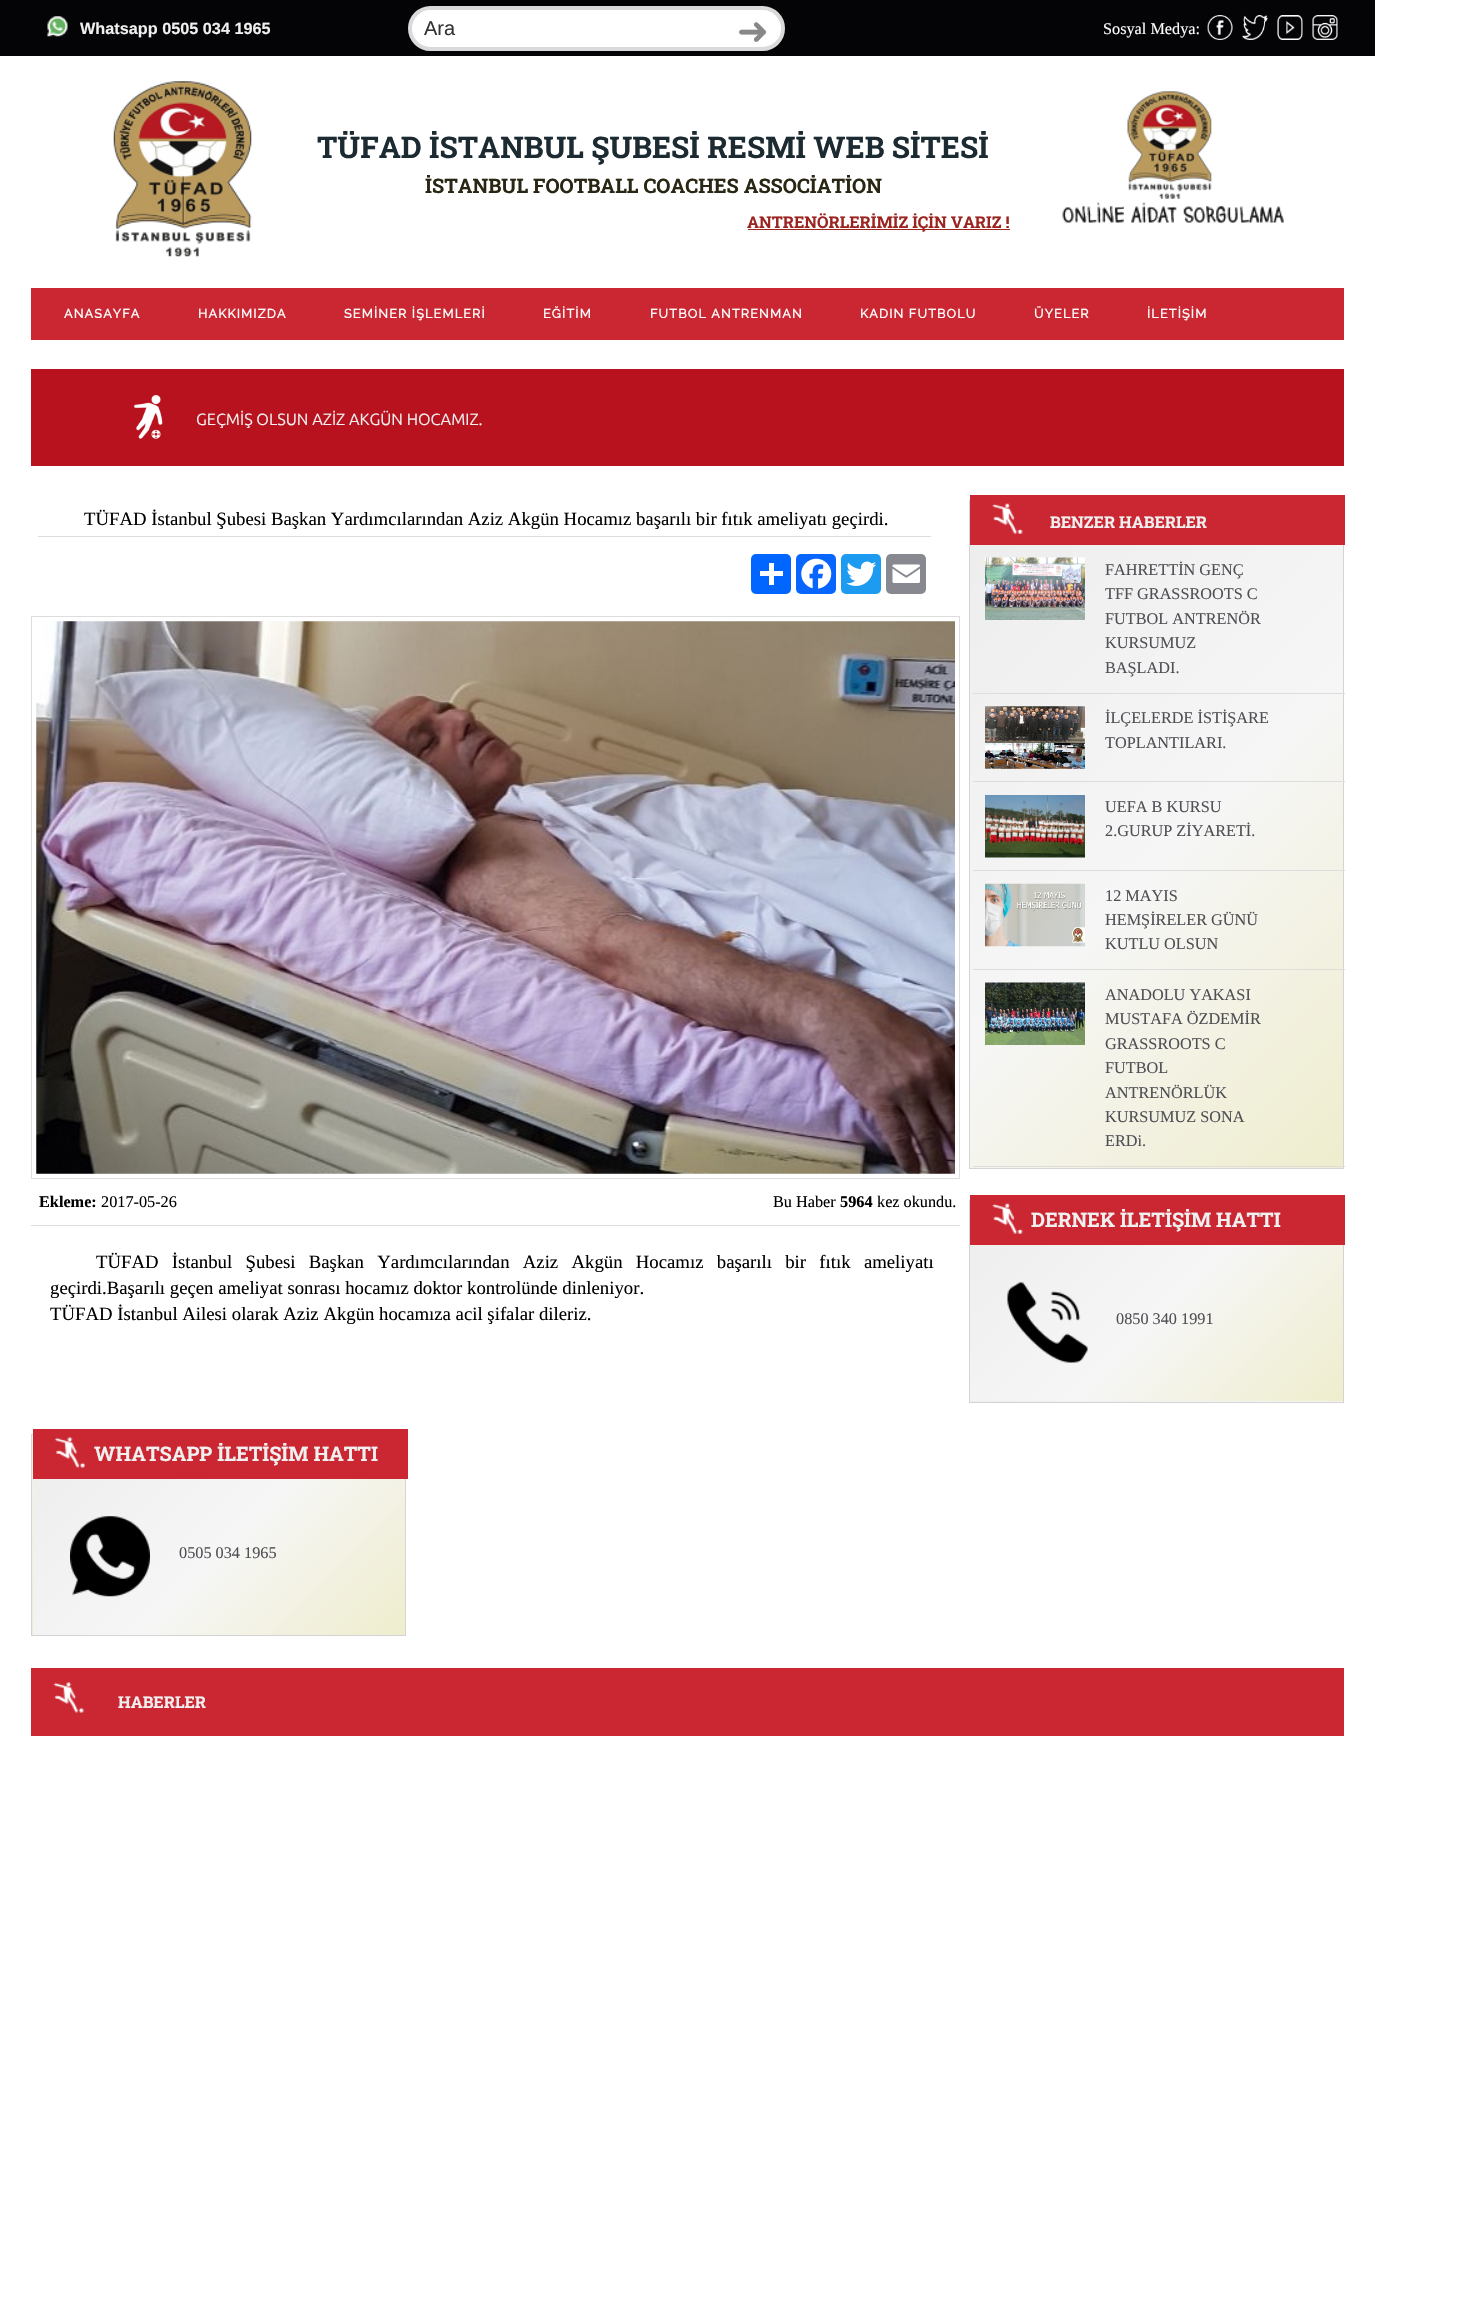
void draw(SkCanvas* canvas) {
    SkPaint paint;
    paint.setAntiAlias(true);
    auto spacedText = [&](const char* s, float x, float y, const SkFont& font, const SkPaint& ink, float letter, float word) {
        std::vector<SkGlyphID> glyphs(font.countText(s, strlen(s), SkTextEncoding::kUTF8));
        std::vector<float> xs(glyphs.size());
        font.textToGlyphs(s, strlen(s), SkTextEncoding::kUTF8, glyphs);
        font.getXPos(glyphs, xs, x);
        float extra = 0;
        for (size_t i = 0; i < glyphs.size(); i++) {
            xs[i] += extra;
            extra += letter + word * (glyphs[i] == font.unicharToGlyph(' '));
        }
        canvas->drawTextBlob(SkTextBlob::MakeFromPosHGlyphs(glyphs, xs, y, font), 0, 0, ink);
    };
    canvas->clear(0xFFFFFFFF);
    paint.setColor(0xFF040406);
    canvas->drawRect(SkRect::MakeXYWH(0, 0, 1375, 56), paint);
    canvas->drawImageRect(SkImages::DeferredFromEncodedData(SkData::MakeFromFileName("img1.png")), SkRect::MakeXYWH(47, 16, 21, 21), SkSamplingOptions());
    SkFont font1(fontMgr->matchFamilyStyle("Liberation Sans", SkFontStyle::Bold()), 16.25f);
    font1.setSubpixel(true);
    paint.setColor(0xFFF0F0F0);
    canvas->drawString("Whatsapp 0505 034 1965", 80, 34, font1, paint);
    paint.setColor(0xFFFFFFFF);
    canvas->drawRoundRect(SkRect::MakeXYWH(410, 8, 373, 41), 20.5f, 20.5f, paint);
    paint.setStyle(SkPaint::kStroke_Style);
    paint.setStrokeWidth(4);
    paint.setColor(0xFFDADADA);
    canvas->drawRoundRect(SkRect::MakeXYWH(410, 8, 373, 41), 20.5f, 20.5f, paint);
    SkFont font2(fontMgr->matchFamilyStyle("Liberation Sans", SkFontStyle::Normal()), 20);
    font2.setSubpixel(true);
    paint.setStyle(SkPaint::kFill_Style);
    paint.setColor(0xFF333333);
    canvas->drawString("Ara", 424, 35, font2, paint);
    SkFont font3(fontMgr->matchFamilyStyle("DejaVu Sans", SkFontStyle::Normal()), 38);
    font3.setSubpixel(true);
    paint.setColor(0xFF888888);
    canvas->drawString("➜", 737, 44, font3, paint);
    SkFont font4(fontMgr->matchFamilyStyle("Liberation Serif", SkFontStyle::Normal()), 16.25f);
    font4.setSubpixel(true);
    paint.setColor(0xFFFDFDFD);
    canvas->drawString("Sosyal Medya:", 1103, 34, font4, paint);
    canvas->drawImageRect(SkImages::DeferredFromEncodedData(SkData::MakeFromFileName("img2.png")), SkRect::MakeXYWH(1207, 15, 26, 25), SkSamplingOptions());
    canvas->drawImageRect(SkImages::DeferredFromEncodedData(SkData::MakeFromFileName("img3.png")), SkRect::MakeXYWH(1242, 15, 26, 25), SkSamplingOptions());
    canvas->drawImageRect(SkImages::DeferredFromEncodedData(SkData::MakeFromFileName("img4.png")), SkRect::MakeXYWH(1277, 15, 26, 25), SkSamplingOptions());
    canvas->drawImageRect(SkImages::DeferredFromEncodedData(SkData::MakeFromFileName("img5.png")), SkRect::MakeXYWH(1312, 15, 26, 25), SkSamplingOptions());
    canvas->drawImageRect(SkImages::DeferredFromEncodedData(SkData::MakeFromFileName("img6.png")), SkRect::MakeXYWH(113, 81, 139, 176), SkSamplingOptions());
    SkFont font5(fontMgr->matchFamilyStyle("Roboto Slab", SkFontStyle::Bold()), 30);
    font5.setSubpixel(true);
    paint.setColor(0xFF1C2A31);
    canvas->drawString("TÜFAD İSTANBUL ŞUBESİ RESMİ WEB SİTESİ", 317, 158, font5, paint);
    SkFont font6(fontMgr->matchFamilyStyle("Roboto Slab", SkFontStyle::Bold()), 20);
    font6.setSubpixel(true);
    paint.setColor(0xFF2A2614);
    canvas->drawString("İSTANBUL FOOTBALL COACHES ASSOCİATİON", 425, 193, font6, paint);
    paint.setColor(0xFF9B241E);
    canvas->drawRect(SkRect::MakeXYWH(748, 229, 262, 1), paint);
    SkFont font7(fontMgr->matchFamilyStyle("Roboto Slab", SkFontStyle::Bold()), 16.25f);
    font7.setSubpixel(true);
    canvas->drawString("ANTRENÖRLERİMİZ İÇİN VARIZ !", 747, 228, font7, paint);
    canvas->drawImageRect(SkImages::DeferredFromEncodedData(SkData::MakeFromFileName("img7.png")), SkRect::MakeXYWH(1062, 91, 222, 133), SkSamplingOptions());
    paint.setColor(0xFFCA2732);
    canvas->drawRect(SkRect::MakeXYWH(31, 288, 1313, 52), paint);
    SkFont font8(fontMgr->matchFamilyStyle("Raleway", SkFontStyle::Bold()), 12.5f);
    font8.setSubpixel(true);
    paint.setColor(0xFFFDFDFD);
    spacedText("ANASAYFA", 64, 318, font8, paint, 1.25f, 0);
    spacedText("HAKKIMIZDA", 198, 318, font8, paint, 1.25f, 0);
    spacedText("SEMİNER İŞLEMLERİ", 344, 318, font8, paint, 1.25f, 0);
    spacedText("EĞİTİM", 543, 318, font8, paint, 1.25f, 0);
    spacedText("FUTBOL ANTRENMAN", 650, 318, font8, paint, 1.25f, 0);
    spacedText("KADIN FUTBOLU", 860, 318, font8, paint, 1.25f, 0);
    spacedText("ÜYELER", 1034, 318, font8, paint, 1.25f, 0);
    spacedText("İLETİŞİM", 1147, 318, font8, paint, 1.25f, 0);
    paint.setColor(0xFFB7121D);
    canvas->drawRect(SkRect::MakeXYWH(31, 369, 1313, 97), paint);
    canvas->drawImageRect(SkImages::DeferredFromEncodedData(SkData::MakeFromFileName("img8.png")), SkRect::MakeXYWH(133, 395, 30, 44), SkSamplingOptions());
    SkFont font9(fontMgr->matchFamilyStyle("Ubuntu", SkFontStyle::Normal()), 16.25f);
    font9.setSubpixel(true);
    paint.setColor(0xFFF0F0F0);
    canvas->drawString("GEÇMİŞ OLSUN AZİZ AKGÜN HOCAMIZ.", 196, 425, font9, paint);
    SkFont font10(fontMgr->matchFamilyStyle("Liberation Serif", SkFontStyle::Normal()), 18.75f);
    font10.setSubpixel(true);
    paint.setColor(0xFF000000);
    canvas->drawString("TÜFAD İstanbul Şubesi Başkan Yardımcılarından Aziz Akgün Hocamız başarılı bir fıtık ameliyatı geçirdi.", 84, 525, font10, paint);
    paint.setColor(0xFFDDDDDD);
    canvas->drawRect(SkRect::MakeXYWH(38, 536, 893, 1), paint);
    paint.setColor(0xFF0166FF);
    canvas->drawRoundRect(SkRect::MakeXYWH(751, 554, 40, 40), 5, 5, paint);
    paint.setColor(0xFFFFFFFF);
    canvas->drawRect(SkRect::MakeXYWH(769, 563, 5, 22), paint);
    canvas->drawRect(SkRect::MakeXYWH(760, 571, 23, 5), paint);
    paint.setColor(0xFF0866FF);
    canvas->drawRoundRect(SkRect::MakeXYWH(796, 554, 40, 40), 5, 5, paint);
    canvas->drawImageRect(SkImages::DeferredFromEncodedData(SkData::MakeFromFileName("img9.png")), SkRect::MakeXYWH(801, 558, 31, 31), SkSamplingOptions());
    paint.setColor(0xFF1D9BF0);
    canvas->drawRoundRect(SkRect::MakeXYWH(841, 554, 40, 40), 5, 5, paint);
    canvas->drawImageRect(SkImages::DeferredFromEncodedData(SkData::MakeFromFileName("img10.png")), SkRect::MakeXYWH(846, 561, 31, 25), SkSamplingOptions());
    paint.setColor(0xFF888990);
    canvas->drawRoundRect(SkRect::MakeXYWH(886, 554, 40, 40), 5, 5, paint);
    canvas->drawImageRect(SkImages::DeferredFromEncodedData(SkData::MakeFromFileName("img11.png")), SkRect::MakeXYWH(892, 564, 28, 19), SkSamplingOptions());
    paint.setStyle(SkPaint::kStroke_Style);
    paint.setStrokeWidth(1);
    paint.setColor(0xFFDDDDDD);
    canvas->drawRect(SkRect::MakeXYWH(31.5f, 616.5f, 928, 562), paint);
    canvas->drawImageRect(SkImages::DeferredFromEncodedData(SkData::MakeFromFileName("img12.png")), SkRect::MakeXYWH(36, 621, 919, 553), SkSamplingOptions());
    SkFont font11(fontMgr->matchFamilyStyle("Liberation Serif", SkFontStyle::Bold()), 16.25f);
    font11.setSubpixel(true);
    paint.setStyle(SkPaint::kFill_Style);
    paint.setColor(0xFF000000);
    canvas->drawString("Ekleme:", 39, 1207, font11, paint);
    canvas->drawString("2017-05-26", 101, 1207, font4, paint);
    canvas->drawString("Bu Haber", 773, 1207, font4, paint);
    canvas->drawString("5964", 840, 1207, font11, paint);
    canvas->drawString("kez okundu.", 877, 1207, font4, paint);
    paint.setColor(0xFFDDDDDD);
    canvas->drawRect(SkRect::MakeXYWH(31, 1225, 929, 1), paint);
    paint.setColor(0xFF000000);
    spacedText("TÜFAD İstanbul Şubesi Başkan Yardımcılarından Aziz Akgün Hocamız başarılı bir fıtık ameliyatı", 96, 1268, font10, paint, 0, 8.6f);
    canvas->drawString("geçirdi.Başarılı geçen ameliyat sonrası hocamız doktor kontrolünde dinleniyor.", 50, 1294, font10, paint);
    canvas->drawString("TÜFAD İstanbul Ailesi olarak Aziz Akgün hocamıza acil şifalar dileriz.", 50, 1320, font10, paint);
    {
        const SkColor colors[] = {0xFFEDEDED, 0xFFF6F6F6, 0xFFEFEDCD};
        const float stops[] = {0, 0.53f, 1};
        const SkPoint ends[] = {{897, 575}, {1416, 1094}};
        paint.setShader(SkGradientShader::MakeLinear(ends, colors, stops, 3, SkTileMode::kClamp));
        paint.setAlpha(255);
    }
    canvas->drawRect(SkRect::MakeXYWH(970, 545, 373, 623), paint);
    paint.setStyle(SkPaint::kStroke_Style);
    paint.setShader(nullptr);
    paint.setColor(0xFFD4D4D4);
    canvas->drawRect(SkRect::MakeXYWH(969.5f, 500.5f, 374, 668), paint);
    paint.setStyle(SkPaint::kFill_Style);
    paint.setColor(0xFFCA2732);
    canvas->drawRect(SkRect::MakeXYWH(970, 495, 375, 50), paint);
    canvas->drawImageRect(SkImages::DeferredFromEncodedData(SkData::MakeFromFileName("img13.png")), SkRect::MakeXYWH(992, 503, 31, 31), SkSamplingOptions());
    paint.setColor(0xFFF0F0F0);
    canvas->drawString("BENZER HABERLER", 1050, 528, font7, paint);
    paint.setColor(0xFFDDDDDD);
    canvas->drawRect(SkRect::MakeXYWH(973, 693, 372, 1), paint);
    canvas->drawImageRect(SkImages::DeferredFromEncodedData(SkData::MakeFromFileName("img14.png")), SkRect::MakeXYWH(985, 557, 100, 63), SkSamplingOptions());
    paint.setColor(0xFF4F4F55);
    canvas->drawString("FAHRETTİN GENÇ", 1105, 575, font4, paint);
    canvas->drawString("TFF GRASSROOTS C", 1105, 599, font4, paint);
    canvas->drawString("FUTBOL ANTRENÖR", 1105, 624, font4, paint);
    canvas->drawString("KURSUMUZ", 1105, 648, font4, paint);
    canvas->drawString("BAŞLADI.", 1105, 673, font4, paint);
    paint.setColor(0xFFDDDDDD);
    canvas->drawRect(SkRect::MakeXYWH(973, 781, 372, 1), paint);
    canvas->drawImageRect(SkImages::DeferredFromEncodedData(SkData::MakeFromFileName("img15.png")), SkRect::MakeXYWH(985, 706, 100, 63), SkSamplingOptions());
    paint.setColor(0xFF4F4F55);
    canvas->drawString("İLÇELERDE İSTİŞARE", 1105, 723, font4, paint);
    canvas->drawString("TOPLANTILARI.", 1105, 748, font4, paint);
    paint.setColor(0xFFDDDDDD);
    canvas->drawRect(SkRect::MakeXYWH(973, 870, 372, 1), paint);
    canvas->drawImageRect(SkImages::DeferredFromEncodedData(SkData::MakeFromFileName("img16.png")), SkRect::MakeXYWH(985, 795, 100, 63), SkSamplingOptions());
    paint.setColor(0xFF4F4F55);
    canvas->drawString("UEFA B KURSU", 1105, 812, font4, paint);
    canvas->drawString("2.GURUP ZİYARETİ.", 1105, 836, font4, paint);
    paint.setColor(0xFFDDDDDD);
    canvas->drawRect(SkRect::MakeXYWH(973, 969, 372, 1), paint);
    canvas->drawImageRect(SkImages::DeferredFromEncodedData(SkData::MakeFromFileName("img17.png")), SkRect::MakeXYWH(985, 883, 100, 64), SkSamplingOptions());
    paint.setColor(0xFF4F4F55);
    canvas->drawString("12 MAYIS", 1105, 901, font4, paint);
    canvas->drawString("HEMŞİRELER GÜNÜ", 1105, 925, font4, paint);
    canvas->drawString("KUTLU OLSUN", 1105, 949, font4, paint);
    paint.setColor(0xFFDDDDDD);
    canvas->drawRect(SkRect::MakeXYWH(973, 1166, 372, 1), paint);
    canvas->drawImageRect(SkImages::DeferredFromEncodedData(SkData::MakeFromFileName("img18.png")), SkRect::MakeXYWH(985, 982, 100, 63), SkSamplingOptions());
    paint.setColor(0xFF4F4F55);
    canvas->drawString("ANADOLU YAKASI", 1105, 1000, font4, paint);
    canvas->drawString("MUSTAFA ÖZDEMİR", 1105, 1024, font4, paint);
    canvas->drawString("GRASSROOTS C", 1105, 1049, font4, paint);
    canvas->drawString("FUTBOL", 1105, 1073, font4, paint);
    canvas->drawString("ANTRENÖRLÜK", 1105, 1098, font4, paint);
    canvas->drawString("KURSUMUZ SONA", 1105, 1122, font4, paint);
    canvas->drawString("ERDi.", 1105, 1146, font4, paint);
    {
        const SkColor colors[] = {0xFFEDEDED, 0xFFF6F6F6, 0xFFEFEDCD};
        const float stops[] = {0, 0.53f, 1};
        const SkPoint ends[] = {{1013, 1158}, {1299, 1444}};
        paint.setShader(SkGradientShader::MakeLinear(ends, colors, stops, 3, SkTileMode::kClamp));
        paint.setAlpha(255);
    }
    canvas->drawRect(SkRect::MakeXYWH(970, 1245, 373, 156), paint);
    {
        const SkColor colors[] = {0xFFEDEDED, 0xFFF6F6F6, 0xFFEFEDCD};
        const float stops[] = {0, 0.53f, 1};
        const SkPoint ends[] = {{1013, 1358}, {1299, 1644}};
        paint.setShader(SkGradientShader::MakeLinear(ends, colors, stops, 3, SkTileMode::kClamp));
        paint.setAlpha(255);
    }
    canvas->drawRect(SkRect::MakeXYWH(970, 1401, 373, 1), paint);
    paint.setStyle(SkPaint::kStroke_Style);
    paint.setShader(nullptr);
    paint.setColor(0xFFD4D4D4);
    canvas->drawRect(SkRect::MakeXYWH(969.5f, 1200.5f, 374, 202), paint);
    paint.setStyle(SkPaint::kFill_Style);
    paint.setColor(0xFFCA2732);
    canvas->drawRect(SkRect::MakeXYWH(970, 1195, 375, 50), paint);
    canvas->drawImageRect(SkImages::DeferredFromEncodedData(SkData::MakeFromFileName("img13.png")), SkRect::MakeXYWH(992, 1203, 31, 31), SkSamplingOptions());
    paint.setColor(0xFFF0F0F0);
    canvas->drawString("DERNEK İLETİŞİM HATTI", 1031, 1227, font6, paint);
    canvas->drawImageRect(SkImages::DeferredFromEncodedData(SkData::MakeFromFileName("img19.png")), SkRect::MakeXYWH(1007, 1282, 81, 81), SkSamplingOptions());
    paint.setColor(0xFF4F4F55);
    canvas->drawString("0850 340 1991", 1116, 1324, font4, paint);
    {
        const SkColor colors[] = {0xFFEDEDED, 0xFFF6F6F6, 0xFFEFEDCD};
        const float stops[] = {0, 0.53f, 1};
        const SkPoint ends[] = {{-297, 1392}, {-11, 1678}};
        paint.setShader(SkGradientShader::MakeLinear(ends, colors, stops, 3, SkTileMode::kClamp));
        paint.setAlpha(255);
    }
    canvas->drawRect(SkRect::MakeXYWH(32, 1435, 1, 200), paint);
    {
        const SkColor colors[] = {0xFFEDEDED, 0xFFF6F6F6, 0xFFEFEDCD};
        const float stops[] = {0, 0.53f, 1};
        const SkPoint ends[] = {{76, 1392}, {362, 1678}};
        paint.setShader(SkGradientShader::MakeLinear(ends, colors, stops, 3, SkTileMode::kClamp));
        paint.setAlpha(255);
    }
    canvas->drawRect(SkRect::MakeXYWH(33, 1479, 372, 156), paint);
    paint.setStyle(SkPaint::kStroke_Style);
    paint.setShader(nullptr);
    paint.setColor(0xFFD4D4D4);
    canvas->drawRect(SkRect::MakeXYWH(31.5f, 1434.5f, 374, 201), paint);
    paint.setStyle(SkPaint::kFill_Style);
    paint.setColor(0xFFCA2732);
    canvas->drawRect(SkRect::MakeXYWH(33, 1429, 375, 50), paint);
    canvas->drawImageRect(SkImages::DeferredFromEncodedData(SkData::MakeFromFileName("img20.png")), SkRect::MakeXYWH(55, 1437, 30, 31), SkSamplingOptions());
    paint.setColor(0xFFF0F0F0);
    canvas->drawString("WHATSAPP İLETİŞİM HATTI", 94, 1461, font6, paint);
    canvas->drawImageRect(SkImages::DeferredFromEncodedData(SkData::MakeFromFileName("img21.png")), SkRect::MakeXYWH(70, 1516, 80, 81), SkSamplingOptions());
    paint.setColor(0xFF4F4F55);
    canvas->drawString("0505 034 1965", 179, 1558, font4, paint);
    paint.setColor(0xFFCA2732);
    canvas->drawRect(SkRect::MakeXYWH(31, 1668, 1313, 68), paint);
    canvas->drawImageRect(SkImages::DeferredFromEncodedData(SkData::MakeFromFileName("img22.png")), SkRect::MakeXYWH(53, 1682, 31, 31), SkSamplingOptions());
    paint.setColor(0xFFF0F0F0);
    canvas->drawString("HABERLER", 118, 1708, font7, paint);
}
